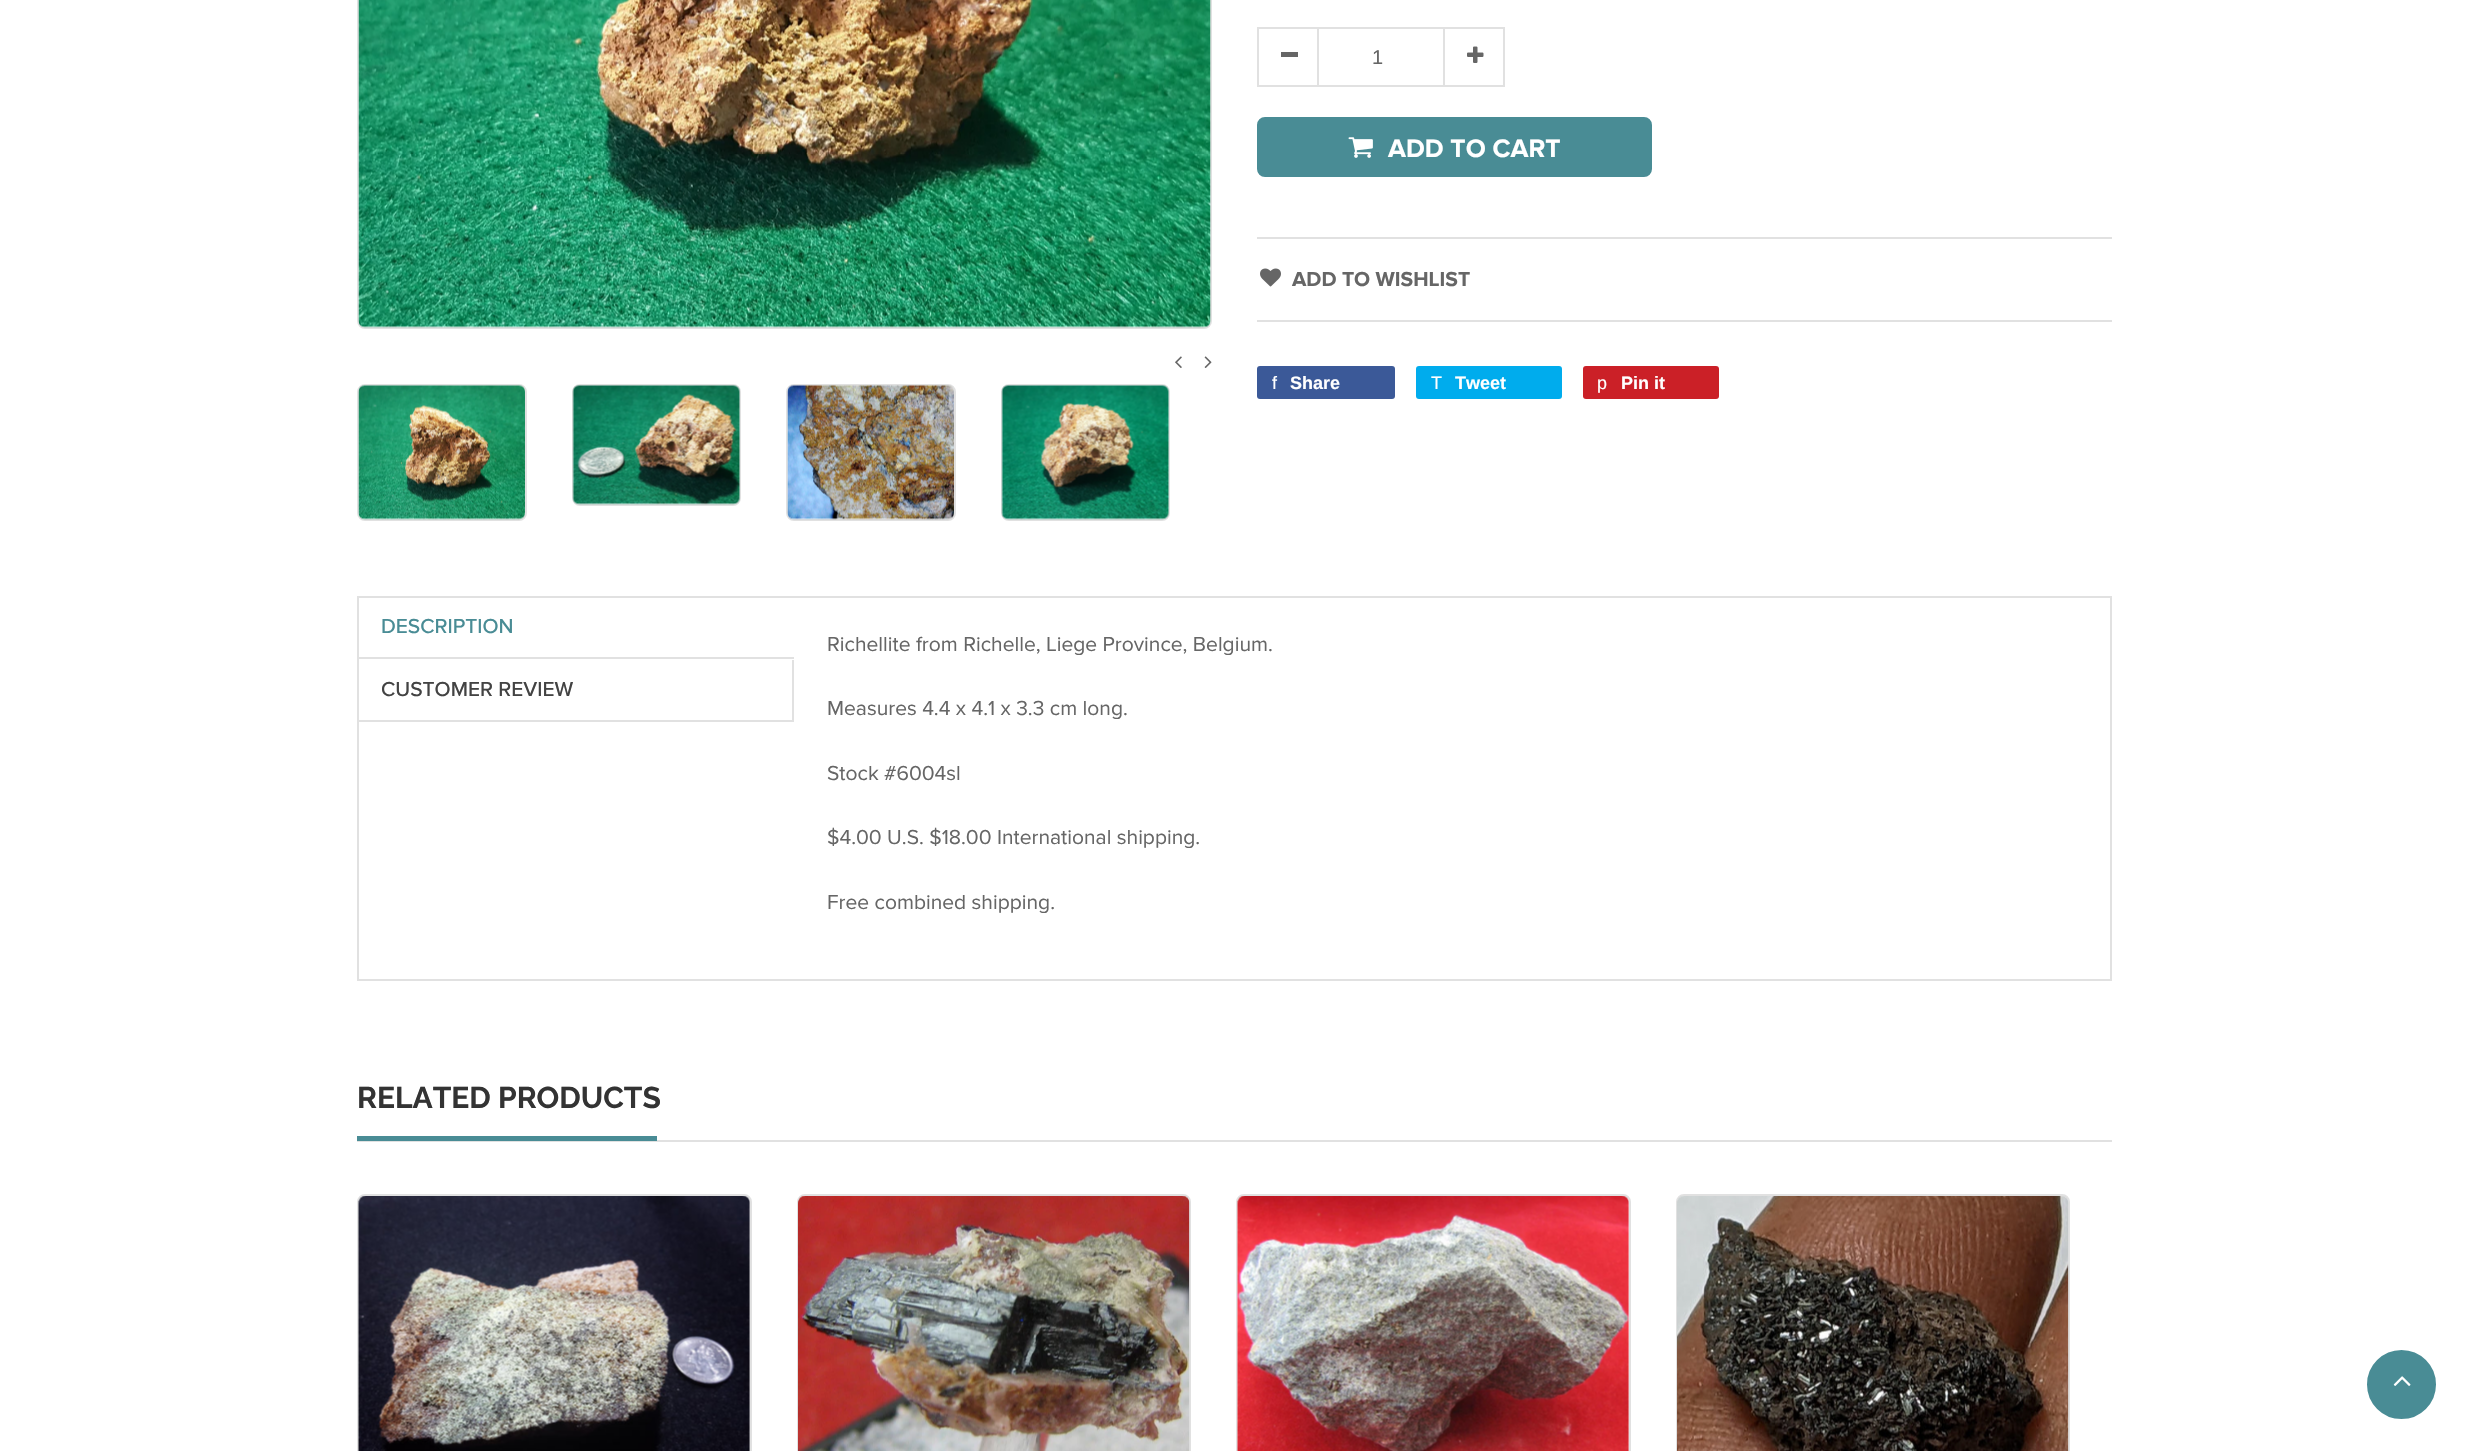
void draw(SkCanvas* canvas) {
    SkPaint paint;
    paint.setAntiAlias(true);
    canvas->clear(0xFFFFFFFF);
    paint.setStyle(SkPaint::kStroke_Style);
    paint.setStrokeWidth(2);
    paint.setColor(0xFFE1E1E1);
    canvas->drawRoundRect(SkRect::MakeXYWH(358, -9, 853, 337), 7, 7, paint);
    canvas->drawImageRect(SkImages::DeferredFromEncodedData(SkData::MakeFromFileName("img1.png")), SkRect::MakeXYWH(358, 0, 853, 328), SkSamplingOptions());
    canvas->drawImageRect(SkImages::DeferredFromEncodedData(SkData::MakeFromFileName("img2.png")), SkRect::MakeXYWH(1175, 356, 7, 12), SkSamplingOptions());
    canvas->drawImageRect(SkImages::DeferredFromEncodedData(SkData::MakeFromFileName("img3.png")), SkRect::MakeXYWH(1204, 356, 8, 12), SkSamplingOptions());
    canvas->drawRoundRect(SkRect::MakeXYWH(358, 385, 168, 135), 7, 7, paint);
    canvas->drawImageRect(SkImages::DeferredFromEncodedData(SkData::MakeFromFileName("img4.png")), SkRect::MakeXYWH(358, 385, 167, 135), SkSamplingOptions());
    canvas->drawRoundRect(SkRect::MakeXYWH(573, 385, 167, 120), 7, 7, paint);
    canvas->drawImageRect(SkImages::DeferredFromEncodedData(SkData::MakeFromFileName("img5.png")), SkRect::MakeXYWH(572, 385, 168, 120), SkSamplingOptions());
    canvas->drawRoundRect(SkRect::MakeXYWH(787, 385, 168, 135), 7, 7, paint);
    canvas->drawImageRect(SkImages::DeferredFromEncodedData(SkData::MakeFromFileName("img6.png")), SkRect::MakeXYWH(787, 385, 167, 135), SkSamplingOptions());
    canvas->drawRoundRect(SkRect::MakeXYWH(1002, 385, 167, 135), 7, 7, paint);
    canvas->drawImageRect(SkImages::DeferredFromEncodedData(SkData::MakeFromFileName("img7.png")), SkRect::MakeXYWH(1001, 385, 168, 135), SkSamplingOptions());
    canvas->drawRect(SkRect::MakeXYWH(1258, 28, 246, 58), paint);
    paint.setStyle(SkPaint::kFill_Style);
    canvas->drawRect(SkRect::MakeXYWH(1317, 29, 2, 58), paint);
    paint.setColor(0xFF666666);
    canvas->drawRect(SkRect::MakeXYWH(1281, 52, 17, 5), paint);
    SkFont font1(fontMgr->matchFamilyStyle("Liberation Sans", SkFontStyle::Normal()), 20);
    font1.setSubpixel(true);
    canvas->drawString("1", 1372, 64, font1, paint);
    paint.setColor(0xFFE1E1E1);
    canvas->drawRect(SkRect::MakeXYWH(1443, 29, 2, 58), paint);
    canvas->drawImageRect(SkImages::DeferredFromEncodedData(SkData::MakeFromFileName("img8.png")), SkRect::MakeXYWH(1467, 46, 17, 17), SkSamplingOptions());
    paint.setColor(0xFF498C95);
    canvas->drawRoundRect(SkRect::MakeXYWH(1258, 118, 393, 58), 7, 7, paint);
    paint.setStyle(SkPaint::kStroke_Style);
    canvas->drawRoundRect(SkRect::MakeXYWH(1258, 118, 393, 58), 7, 7, paint);
    canvas->drawImageRect(SkImages::DeferredFromEncodedData(SkData::MakeFromFileName("img9.png")), SkRect::MakeXYWH(1348, 137, 25, 21), SkSamplingOptions());
    SkFont font2(fontMgr->matchFamilyStyle("Proxima Nova", SkFontStyle::Bold()), 26.25f);
    font2.setSubpixel(true);
    paint.setStyle(SkPaint::kFill_Style);
    paint.setColor(0xFFFFFFFF);
    canvas->drawString("ADD TO CART", 1388, 157, font2, paint);
    paint.setColor(0xFFE1E1E1);
    canvas->drawRect(SkRect::MakeXYWH(1257, 237, 855, 2), paint);
    canvas->drawRect(SkRect::MakeXYWH(1257, 320, 855, 2), paint);
    canvas->drawImageRect(SkImages::DeferredFromEncodedData(SkData::MakeFromFileName("img10.png")), SkRect::MakeXYWH(1260, 268, 21, 19), SkSamplingOptions());
    SkFont font3(fontMgr->matchFamilyStyle("Proxima Nova", SkFontStyle::Bold()), 21);
    font3.setSubpixel(true);
    paint.setColor(0xFF666666);
    canvas->drawString("ADD TO WISHLIST", 1292, 286, font3, paint);
    paint.setColor(0xFF3B5998);
    canvas->drawRoundRect(SkRect::MakeXYWH(1257, 366, 138, 33), 3, 3, paint);
    SkFont font4(fontMgr->matchFamilyStyle("Liberation Sans", SkFontStyle::Normal()), 18);
    font4.setSubpixel(true);
    paint.setColor(0xFFFFFFFF);
    canvas->drawString("f", 1272, 389, font4, paint);
    SkFont font5(fontMgr->matchFamilyStyle("Liberation Sans", SkFontStyle::Bold()), 18);
    font5.setSubpixel(true);
    canvas->drawString("Share", 1290, 389, font5, paint);
    paint.setColor(0xFF00ACED);
    canvas->drawRoundRect(SkRect::MakeXYWH(1416, 366, 146, 33), 3, 3, paint);
    paint.setColor(0xFFFFFFFF);
    canvas->drawString("T", 1431, 389, font4, paint);
    canvas->drawString("Tweet", 1455, 389, font5, paint);
    paint.setColor(0xFFCB2027);
    canvas->drawRoundRect(SkRect::MakeXYWH(1583, 366, 136, 33), 3, 3, paint);
    paint.setColor(0xFFFFFFFF);
    canvas->drawString("p", 1597, 389, font4, paint);
    canvas->drawString("Pin it", 1621, 389, font5, paint);
    paint.setStyle(SkPaint::kStroke_Style);
    paint.setColor(0xFFE1E1E1);
    canvas->drawRect(SkRect::MakeXYWH(358, 597, 1753, 383), paint);
    paint.setStyle(SkPaint::kFill_Style);
    canvas->drawRect(SkRect::MakeXYWH(359, 657, 435, 2), paint);
    SkFont font6(fontMgr->matchFamilyStyle("Proxima Nova", SkFontStyle(500, SkFontStyle::kNormal_Width, SkFontStyle::kUpright_Slant)), 21);
    font6.setSubpixel(true);
    paint.setColor(0xFF498C95);
    canvas->drawString("DESCRIPTION", 381, 633, font6, paint);
    paint.setColor(0xFFE1E1E1);
    canvas->drawRect(SkRect::MakeXYWH(792, 660, 2, 62), paint);
    canvas->drawRect(SkRect::MakeXYWH(359, 720, 435, 2), paint);
    paint.setColor(0xFF434343);
    canvas->drawString("CUSTOMER REVIEW", 381, 696, font6, paint);
    SkFont font7(fontMgr->matchFamilyStyle("Proxima Nova", SkFontStyle::Normal()), 21);
    font7.setSubpixel(true);
    paint.setColor(0xFF666666);
    canvas->drawString("Richellite from Richelle, Liege Province, Belgium.", 827, 651, font7, paint);
    canvas->drawString("Measures 4.4 x 4.1 x 3.3 cm long.", 827, 715, font7, paint);
    canvas->drawString("Stock #6004sl", 827, 780, font7, paint);
    canvas->drawString("$4.00 U.S. $18.00 International shipping.", 827, 844, font7, paint);
    canvas->drawString("Free combined shipping.", 827, 909, font7, paint);
    paint.setColor(0xFFE1E1E1);
    canvas->drawRect(SkRect::MakeXYWH(357, 1140, 1755, 2), paint);
    SkFont font8(fontMgr->matchFamilyStyle("Raleway", SkFontStyle::Bold()), 30);
    font8.setSubpixel(true);
    paint.setColor(0xFF333333);
    canvas->drawString("RELATED PRODUCTS", 357, 1108, font8, paint);
    paint.setColor(0xFF498C95);
    canvas->drawRect(SkRect::MakeXYWH(357, 1136, 300, 5), paint);
    paint.setStyle(SkPaint::kStroke_Style);
    paint.setColor(0xFFE1E1E1);
    canvas->drawRoundRect(SkRect::MakeXYWH(358, 1195, 393, 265), 7, 7, paint);
    canvas->drawImageRect(SkImages::DeferredFromEncodedData(SkData::MakeFromFileName("img11.png")), SkRect::MakeXYWH(358, 1196, 392, 255), SkSamplingOptions());
    canvas->drawRoundRect(SkRect::MakeXYWH(798, 1195, 392, 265), 7, 7, paint);
    canvas->drawImageRect(SkImages::DeferredFromEncodedData(SkData::MakeFromFileName("img12.png")), SkRect::MakeXYWH(798, 1196, 392, 255), SkSamplingOptions());
    canvas->drawRoundRect(SkRect::MakeXYWH(1237, 1195, 393, 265), 7, 7, paint);
    canvas->drawImageRect(SkImages::DeferredFromEncodedData(SkData::MakeFromFileName("img13.png")), SkRect::MakeXYWH(1237, 1196, 392, 255), SkSamplingOptions());
    canvas->drawRoundRect(SkRect::MakeXYWH(1677, 1195, 392, 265), 7, 7, paint);
    canvas->drawImageRect(SkImages::DeferredFromEncodedData(SkData::MakeFromFileName("img14.png")), SkRect::MakeXYWH(1677, 1196, 392, 255), SkSamplingOptions());
    paint.setStyle(SkPaint::kFill_Style);
    paint.setColor(0xFF498C95);
    canvas->drawCircle(2401.5f, 1384.5f, 36, paint);
    paint.setStyle(SkPaint::kStroke_Style);
    paint.setStrokeWidth(3);
    paint.setColor(0xFFFFFFFF);
    canvas->drawCircle(2401.5f, 1384.5f, 36, paint);
    canvas->drawImageRect(SkImages::DeferredFromEncodedData(SkData::MakeFromFileName("img15.png")), SkRect::MakeXYWH(2393, 1376, 18, 10), SkSamplingOptions());
}
